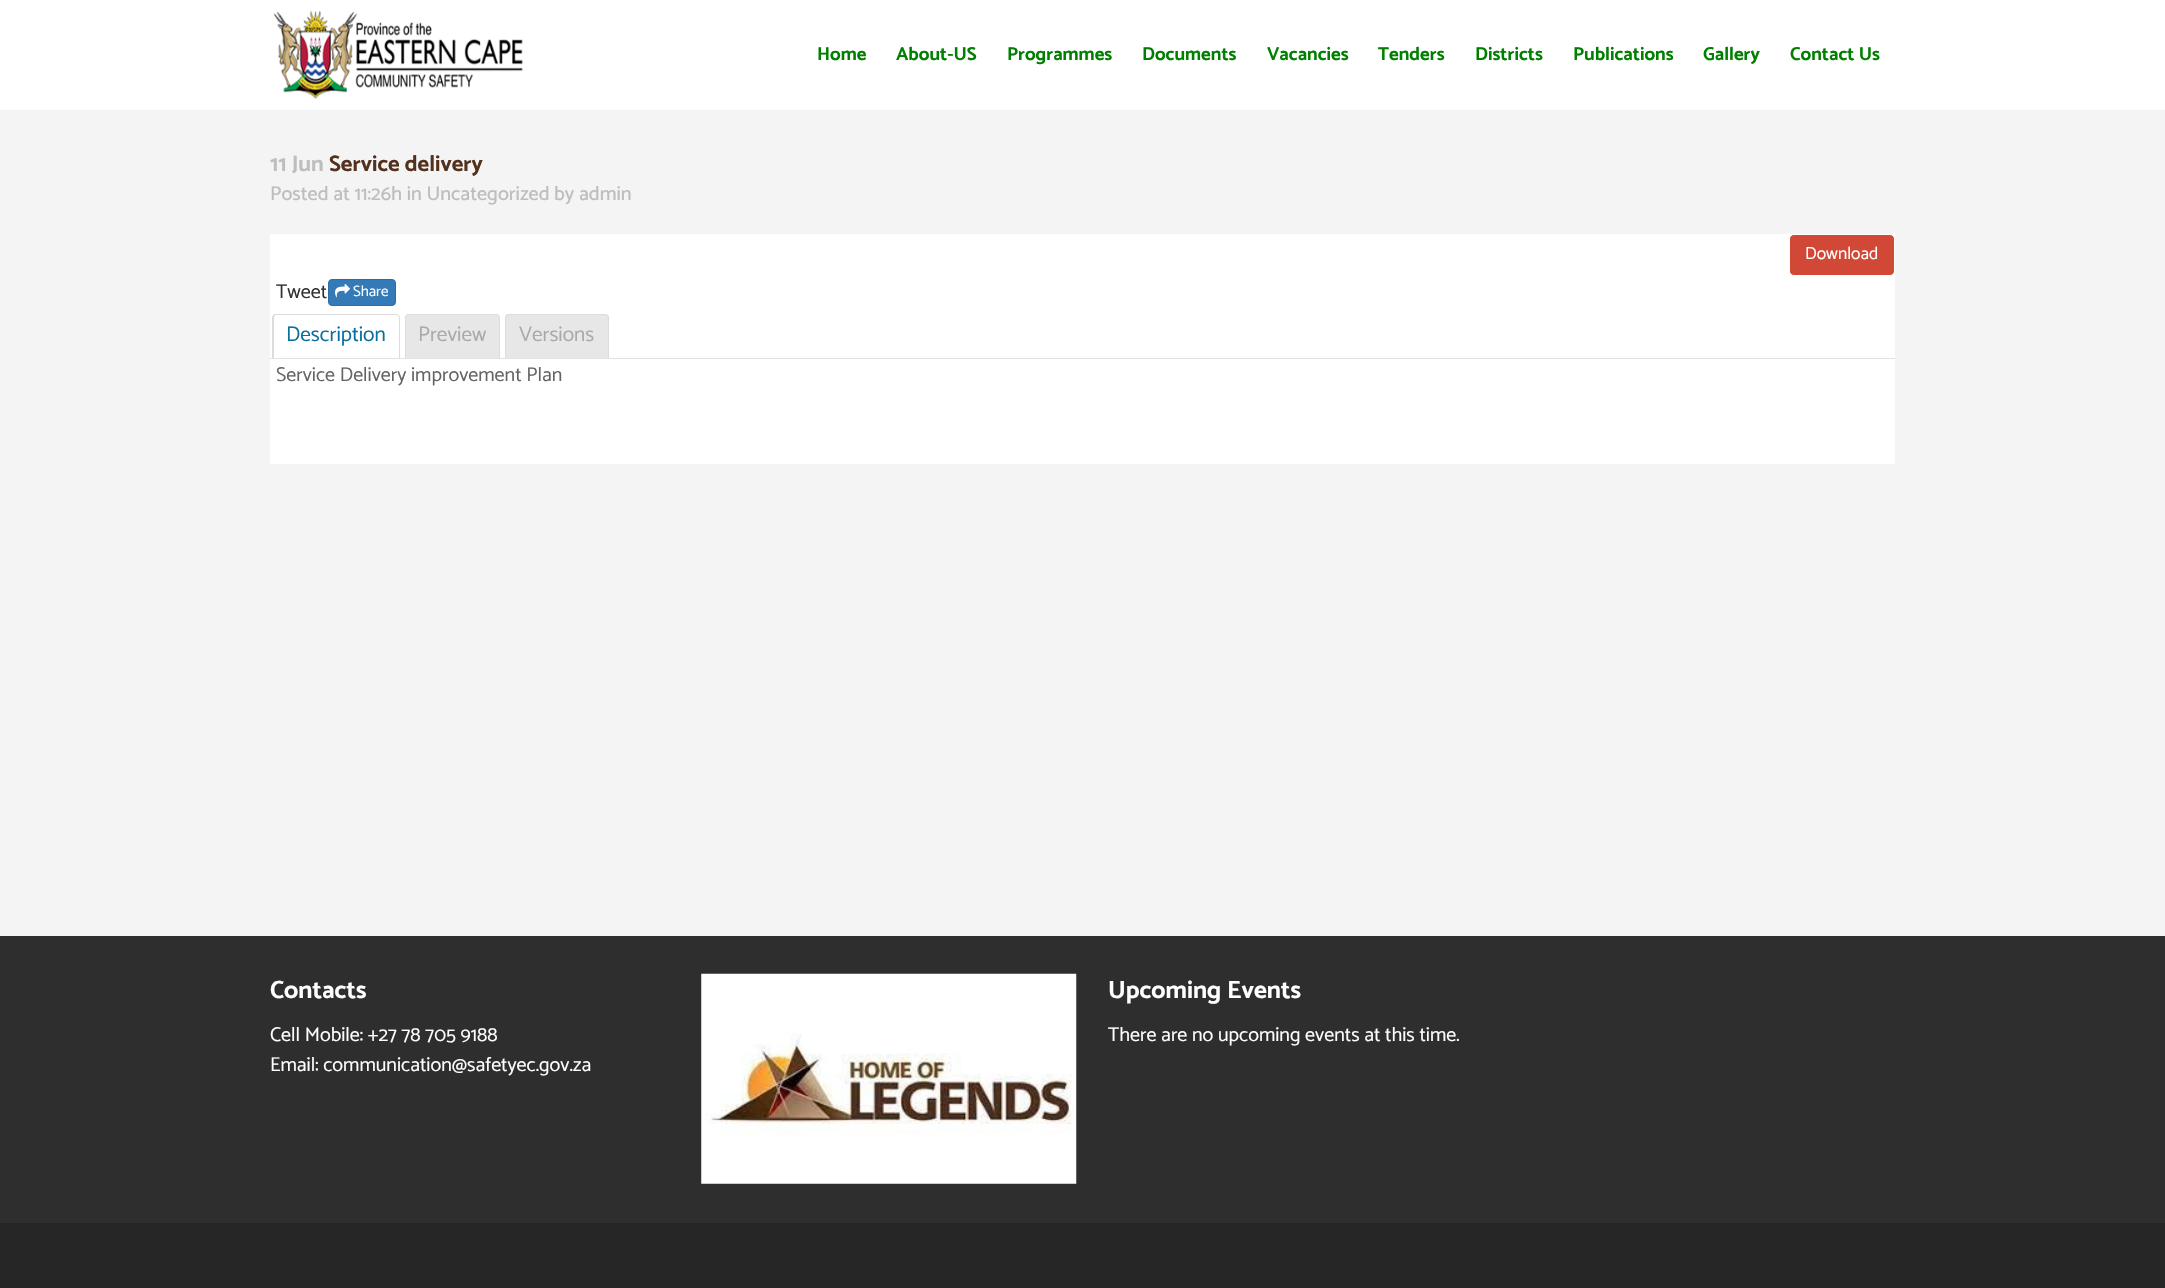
void draw(SkCanvas* canvas) {
    SkPaint paint;
    paint.setAntiAlias(true);
    canvas->clear(0xFFF4F4F4);
    paint.setColor(0xFFFFFFFF);
    canvas->drawRect(SkRect::MakeXYWH(0, 0, 2165, 110), paint);
    canvas->drawImageRect(SkImages::DeferredFromEncodedData(SkData::MakeFromFileName("img1.png")), SkRect::MakeXYWH(273, 10, 250, 89), SkSamplingOptions());
    SkFont font1(fontMgr->matchFamilyStyle("Catamaran", SkFontStyle::Bold()), 18.75f);
    font1.setSubpixel(true);
    paint.setColor(0xFF008000);
    canvas->drawString("Home", 817, 60, font1, paint);
    canvas->drawString("About-US", 896, 60, font1, paint);
    canvas->drawString("Programmes", 1007, 60, font1, paint);
    canvas->drawString("Documents", 1142, 60, font1, paint);
    canvas->drawString("Vacancies", 1267, 60, font1, paint);
    canvas->drawString("Tenders", 1378, 60, font1, paint);
    canvas->drawString("Districts", 1475, 60, font1, paint);
    canvas->drawString("Publications", 1573, 60, font1, paint);
    canvas->drawString("Gallery", 1703, 60, font1, paint);
    canvas->drawString("Contact Us", 1790, 60, font1, paint);
    SkFont font2(fontMgr->matchFamilyStyle("Catamaran", SkFontStyle::Bold()), 22.5f);
    font2.setSubpixel(true);
    paint.setColor(0xFFBEBEBE);
    canvas->drawString("11 Jun", 270, 171, font2, paint);
    paint.setColor(0xFF53311D);
    canvas->drawString("Service delivery", 329, 171, font2, paint);
    SkFont font3(fontMgr->matchFamilyStyle("Catamaran", SkFontStyle(500, SkFontStyle::kNormal_Width, SkFontStyle::kUpright_Slant)), 20);
    font3.setSubpixel(true);
    paint.setColor(0xFFBEBEBE);
    canvas->drawString("Posted at 11:26h in Uncategorized by admin", 270, 200, font3, paint);
    paint.setColor(0xFFFFFFFF);
    canvas->drawRect(SkRect::MakeXYWH(270, 234, 1625, 230), paint);
    paint.setColor(0xFFD14836);
    canvas->drawRoundRect(SkRect::MakeXYWH(1789.5f, 234.5f, 105, 41), 4.5f, 4.5f, paint);
    paint.setStyle(SkPaint::kStroke_Style);
    paint.setStrokeWidth(1);
    paint.setColor(0xFFFFFFFF);
    canvas->drawRoundRect(SkRect::MakeXYWH(1789.5f, 234.5f, 105, 41), 4.5f, 4.5f, paint);
    SkFont font4(fontMgr->matchFamilyStyle("Catamaran", SkFontStyle::Normal()), 17.5f);
    font4.setSubpixel(true);
    paint.setStyle(SkPaint::kFill_Style);
    canvas->drawString("Download", 1805, 259, font4, paint);
    SkFont font5(fontMgr->matchFamilyStyle("Catamaran", SkFontStyle::Normal()), 20);
    font5.setSubpixel(true);
    paint.setColor(0xFF303030);
    canvas->drawString("Tweet", 276, 298, font5, paint);
    paint.setColor(0xFF337AB7);
    canvas->drawRoundRect(SkRect::MakeXYWH(328.5f, 279.5f, 67, 26), 3.5f, 3.5f, paint);
    paint.setStyle(SkPaint::kStroke_Style);
    paint.setColor(0xFF2E6DA4);
    canvas->drawRoundRect(SkRect::MakeXYWH(328.5f, 279.5f, 67, 26), 3.5f, 3.5f, paint);
    canvas->drawImageRect(SkImages::DeferredFromEncodedData(SkData::MakeFromFileName("img2.png")), SkRect::MakeXYWH(335, 284, 15, 14), SkSamplingOptions());
    SkFont font6(fontMgr->matchFamilyStyle("Catamaran", SkFontStyle::Normal()), 15);
    font6.setSubpixel(true);
    paint.setStyle(SkPaint::kFill_Style);
    paint.setColor(0xFFFFFFFF);
    canvas->drawString("Share", 353, 296, font6, paint);
    paint.setColor(0xFFDCDCDC);
    canvas->drawPath(SkPathBuilder(SkPathFillType::kEvenOdd).moveTo(276, 314).lineTo(396, 314).cubicTo(398, 314, 400, 315, 400, 318).lineTo(400, 358).lineTo(272, 358).lineTo(272, 318).cubicTo(272, 315, 274, 314, 276, 314).close().moveTo(276, 315).lineTo(396, 315).cubicTo(398, 315, 399, 316, 399, 318).lineTo(399, 358).lineTo(274, 358).lineTo(274, 318).cubicTo(274, 316, 275, 315, 276, 315).close().detach(), paint);
    SkFont font7(fontMgr->matchFamilyStyle("Catamaran", SkFontStyle::Normal()), 21.25f);
    font7.setSubpixel(true);
    paint.setColor(0xFF086FA1);
    canvas->drawString("Description", 286, 341, font7, paint);
    paint.setColor(0xFFE7E7E7);
    canvas->drawPath(SkPathBuilder().moveTo(409, 314).lineTo(496, 314).cubicTo(498, 314, 500, 316, 500, 318).lineTo(500, 358).lineTo(405, 358).lineTo(405, 318).cubicTo(405, 316, 407, 314, 409, 314).close().detach(), paint);
    paint.setColor(0xFFDCDCDC);
    canvas->drawPath(SkPathBuilder(SkPathFillType::kEvenOdd).moveTo(409, 314).lineTo(496, 314).cubicTo(498, 314, 500, 315, 500, 318).lineTo(500, 358).lineTo(405, 358).lineTo(405, 318).cubicTo(405, 315, 407, 314, 409, 314).close().moveTo(409, 315).lineTo(496, 315).cubicTo(498, 315, 499, 316, 499, 318).lineTo(499, 358).lineTo(406, 358).lineTo(406, 318).cubicTo(406, 316, 407, 315, 409, 315).close().detach(), paint);
    paint.setColor(0xFFAAAAAA);
    canvas->drawString("Preview", 418, 341, font7, paint);
    paint.setColor(0xFFE7E7E7);
    canvas->drawPath(SkPathBuilder().moveTo(509, 314).lineTo(605, 314).cubicTo(607, 314, 609, 316, 609, 318).lineTo(609, 358).lineTo(505, 358).lineTo(505, 318).cubicTo(505, 316, 507, 314, 509, 314).close().detach(), paint);
    paint.setColor(0xFFDCDCDC);
    canvas->drawPath(SkPathBuilder(SkPathFillType::kEvenOdd).moveTo(509, 314).lineTo(605, 314).cubicTo(607, 314, 609, 315, 609, 318).lineTo(609, 358).lineTo(505, 358).lineTo(505, 318).cubicTo(505, 315, 507, 314, 509, 314).close().moveTo(509, 315).lineTo(605, 315).cubicTo(606, 315, 608, 316, 608, 318).lineTo(608, 358).lineTo(506, 358).lineTo(506, 318).cubicTo(506, 316, 507, 315, 509, 315).close().detach(), paint);
    paint.setColor(0xFFAAAAAA);
    canvas->drawString("Versions", 519, 341, font7, paint);
    paint.setColor(0xFFE2E2E2);
    canvas->drawRect(SkRect::MakeXYWH(270, 358, 1625, 1), paint);
    paint.setColor(0xFF646464);
    canvas->drawString("Service Delivery improvement Plan", 276, 381, font5, paint);
    paint.setColor(0xFF2E2E2E);
    canvas->drawRect(SkRect::MakeXYWH(0, 936, 2165, 287), paint);
    SkFont font8(fontMgr->matchFamilyStyle("Catamaran", SkFontStyle::Bold()), 25);
    font8.setSubpixel(true);
    paint.setColor(0xFFFFFFFF);
    canvas->drawString("Contacts", 270, 998, font8, paint);
    canvas->drawString("Cell Mobile: +27 78 705 9188", 270, 1041, font5, paint);
    canvas->drawString("Email: communication@safetyec.gov.za", 270, 1071, font5, paint);
    canvas->drawImageRect(SkImages::DeferredFromEncodedData(SkData::MakeFromFileName("img3.png")), SkRect::MakeXYWH(701, 973, 376, 211), SkSamplingOptions());
    canvas->drawString("Upcoming Events", 1108, 998, font8, paint);
    canvas->drawString("There are no upcoming events at this time.", 1108, 1041, font5, paint);
    paint.setColor(0xFF262626);
    canvas->drawRect(SkRect::MakeXYWH(0, 1223, 2165, 65), paint);
}
